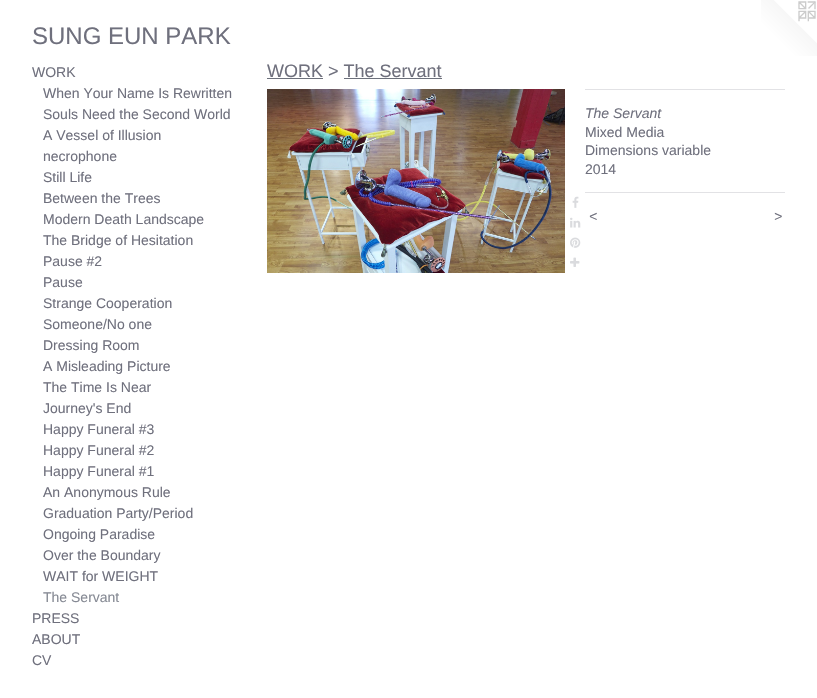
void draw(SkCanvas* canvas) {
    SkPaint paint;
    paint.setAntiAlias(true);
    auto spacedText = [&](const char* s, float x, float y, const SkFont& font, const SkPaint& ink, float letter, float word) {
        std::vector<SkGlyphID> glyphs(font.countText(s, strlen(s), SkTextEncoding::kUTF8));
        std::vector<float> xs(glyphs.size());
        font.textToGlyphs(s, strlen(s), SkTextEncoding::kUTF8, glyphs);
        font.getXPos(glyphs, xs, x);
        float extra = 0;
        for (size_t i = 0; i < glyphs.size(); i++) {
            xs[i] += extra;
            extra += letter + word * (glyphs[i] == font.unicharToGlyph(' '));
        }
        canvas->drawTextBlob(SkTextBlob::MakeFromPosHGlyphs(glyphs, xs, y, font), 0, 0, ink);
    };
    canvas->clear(0xFFFFFFFF);
    SkFont font1(fontMgr->matchFamilyStyle("Liberation Sans", SkFontStyle::Normal()), 24);
    font1.setSubpixel(true);
    paint.setColor(0xFF6F707D);
    canvas->drawString("SUNG EUN PARK", 32, 44, font1, paint);
    canvas->drawImageRect(SkImages::DeferredFromEncodedData(SkData::MakeFromFileName("img1.png")), SkRect::MakeXYWH(761, 0, 56, 56), SkSamplingOptions());
    SkFont font2(fontMgr->matchFamilyStyle("Liberation Sans", SkFontStyle::Normal()), 14);
    font2.setSubpixel(true);
    canvas->drawString("WORK", 32, 77, font2, paint);
    canvas->drawString("When Your Name Is Rewritten", 43, 98, font2, paint);
    canvas->drawString("Souls Need the Second World", 43, 119, font2, paint);
    canvas->drawString("A Vessel of Illusion", 43, 140, font2, paint);
    canvas->drawString("necrophone", 43, 161, font2, paint);
    canvas->drawString("Still Life", 43, 182, font2, paint);
    canvas->drawString("Between the Trees", 43, 203, font2, paint);
    canvas->drawString("Modern Death Landscape", 43, 224, font2, paint);
    canvas->drawString("The Bridge of Hesitation", 43, 245, font2, paint);
    canvas->drawString("Pause #2", 43, 266, font2, paint);
    canvas->drawString("Pause", 43, 287, font2, paint);
    canvas->drawString("Strange Cooperation", 43, 308, font2, paint);
    canvas->drawString("Someone/No one", 43, 329, font2, paint);
    canvas->drawString("Dressing Room", 43, 350, font2, paint);
    canvas->drawString("A Misleading Picture", 43, 371, font2, paint);
    canvas->drawString("The Time Is Near", 43, 392, font2, paint);
    canvas->drawString("Journey's End", 43, 413, font2, paint);
    canvas->drawString("Happy Funeral #3", 43, 434, font2, paint);
    canvas->drawString("Happy Funeral #2", 43, 455, font2, paint);
    canvas->drawString("Happy Funeral #1", 43, 476, font2, paint);
    canvas->drawString("An Anonymous Rule", 43, 497, font2, paint);
    canvas->drawString("Graduation Party/Period", 43, 518, font2, paint);
    canvas->drawString("Ongoing Paradise", 43, 539, font2, paint);
    canvas->drawString("Over the Boundary", 43, 560, font2, paint);
    canvas->drawString("WAIT for WEIGHT", 43, 581, font2, paint);
    paint.setColor(0xFF868A94);
    canvas->drawString("The Servant", 43, 602, font2, paint);
    paint.setColor(0xFF6F707D);
    canvas->drawString("PRESS", 32, 623, font2, paint);
    canvas->drawString("ABOUT", 32, 644, font2, paint);
    canvas->drawString("CV", 32, 665, font2, paint);
    SkFont font3(fontMgr->matchFamilyStyle("Liberation Sans", SkFontStyle::Normal()), 18);
    font3.setSubpixel(true);
    canvas->drawString("WORK > The Servant", 267, 77, font3, paint);
    paint.setColor(0xFF6C707B);
    canvas->drawRect(SkRect::MakeXYWH(267, 78, 56, 1), paint);
    canvas->drawRect(SkRect::MakeXYWH(344, 78, 98, 1), paint);
    canvas->drawImageRect(SkImages::DeferredFromEncodedData(SkData::MakeFromFileName("img2.png")), SkRect::MakeXYWH(267, 89, 298, 184), SkSamplingOptions());
    canvas->drawImageRect(SkImages::DeferredFromEncodedData(SkData::MakeFromFileName("img3.png")), SkRect::MakeXYWH(572, 196, 7, 12), SkSamplingOptions());
    canvas->drawImageRect(SkImages::DeferredFromEncodedData(SkData::MakeFromFileName("img4.png")), SkRect::MakeXYWH(570, 217, 11, 11), SkSamplingOptions());
    canvas->drawImageRect(SkImages::DeferredFromEncodedData(SkData::MakeFromFileName("img5.png")), SkRect::MakeXYWH(570, 237, 11, 11), SkSamplingOptions());
    canvas->drawImageRect(SkImages::DeferredFromEncodedData(SkData::MakeFromFileName("img6.png")), SkRect::MakeXYWH(570, 257, 10, 10), SkSamplingOptions());
    paint.setColor(0xFFE2E2E5);
    canvas->drawRect(SkRect::MakeXYWH(585, 89, 200, 1), paint);
    SkFont font4(fontMgr->matchFamilyStyle("Liberation Sans", SkFontStyle::Italic()), 14);
    font4.setSubpixel(true);
    paint.setColor(0xFF6F707D);
    canvas->drawString("The Servant", 585, 118, font4, paint);
    canvas->drawString("Mixed Media", 585, 137, font2, paint);
    canvas->drawString("Dimensions variable", 585, 155, font2, paint);
    canvas->drawString("2014", 585, 174, font2, paint);
    paint.setColor(0xFFE2E2E5);
    canvas->drawRect(SkRect::MakeXYWH(585, 192, 200, 1), paint);
    paint.setColor(0xFF6F707D);
    spacedText("<", 589, 221, font4, paint, 1, 0);
    spacedText(">", 774, 221, font4, paint, 1, 0);
}
